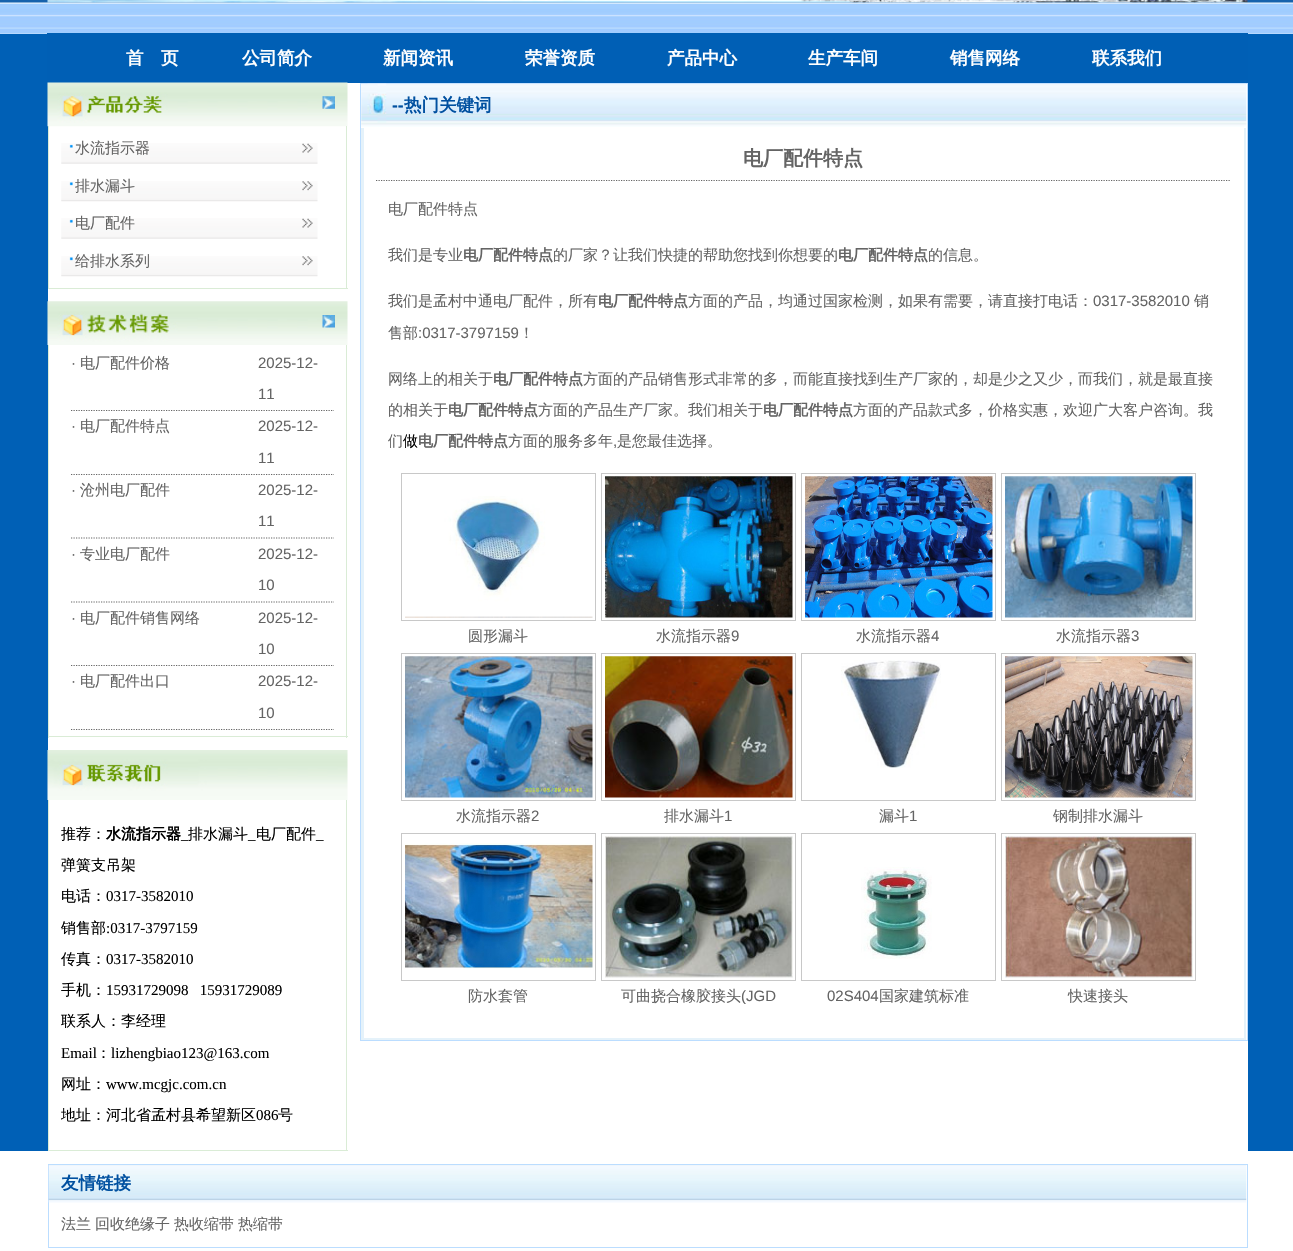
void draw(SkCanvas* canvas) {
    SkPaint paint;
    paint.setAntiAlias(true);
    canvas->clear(0xFFFFFFFF);
    paint.setColor(0xFF1662AC);
    canvas->drawRect(SkRect::MakeXYWH(0, 0, 1293, 3), paint);
    canvas->drawImageRect(SkImages::DeferredFromEncodedData(SkData::MakeFromFileName("img1.png")), SkRect::MakeXYWH(47, 0, 1201, 3), SkSamplingOptions());
    canvas->drawImageRect(SkImages::DeferredFromEncodedData(SkData::MakeFromFileName("img2.png")), SkRect::MakeXYWH(0, 2, 1293, 32), SkSamplingOptions());
    paint.setColor(0xFF0060B6);
    canvas->drawRect(SkRect::MakeXYWH(0, 34, 48, 1117), paint);
    paint.setColor(0xFF005FB5);
    canvas->drawRect(SkRect::MakeXYWH(47, 33, 1201, 50), paint);
    SkFont font1(fontMgr->matchFamilyStyle("WenQuanYi Zen Hei", SkFontStyle::Bold()), 17.5f);
    font1.setSubpixel(true);
    paint.setColor(0xFFFFFFFF);
    canvas->drawString("首　页", 126, 64, font1, paint);
    canvas->drawString("公司简介", 242, 64, font1, paint);
    canvas->drawString("新闻资讯", 383, 64, font1, paint);
    canvas->drawString("荣誉资质", 525, 64, font1, paint);
    canvas->drawString("产品中心", 667, 64, font1, paint);
    canvas->drawString("生产车间", 808, 64, font1, paint);
    canvas->drawString("销售网络", 950, 64, font1, paint);
    canvas->drawString("联系我们", 1092, 64, font1, paint);
    paint.setColor(0xFF0060B6);
    canvas->drawRect(SkRect::MakeXYWH(1248, 34, 45, 1117), paint);
    canvas->drawImageRect(SkImages::DeferredFromEncodedData(SkData::MakeFromFileName("img3.png")), SkRect::MakeXYWH(47, 82, 301, 45), SkSamplingOptions());
    canvas->drawImageRect(SkImages::DeferredFromEncodedData(SkData::MakeFromFileName("img4.png")), SkRect::MakeXYWH(322, 96, 13, 13), SkSamplingOptions());
    paint.setColor(0xFFDAECD6);
    canvas->drawRect(SkRect::MakeXYWH(346, 126, 1, 163), paint);
    canvas->drawRect(SkRect::MakeXYWH(48, 288, 300, 1), paint);
    canvas->drawRect(SkRect::MakeXYWH(48, 126, 1, 163), paint);
    canvas->drawImageRect(SkImages::DeferredFromEncodedData(SkData::MakeFromFileName("img5.png")), SkRect::MakeXYWH(61, 143, 257, 21), SkSamplingOptions());
    SkFont font2(fontMgr->matchFamilyStyle("WenQuanYi Zen Hei", SkFontStyle(500, SkFontStyle::kNormal_Width, SkFontStyle::kUpright_Slant)), 15);
    font2.setSubpixel(true);
    paint.setColor(0xFF646464);
    canvas->drawString("水流指示器", 75, 153, font2, paint);
    canvas->drawImageRect(SkImages::DeferredFromEncodedData(SkData::MakeFromFileName("img6.png")), SkRect::MakeXYWH(61, 181, 257, 21), SkSamplingOptions());
    canvas->drawString("排水漏斗", 75, 191, font2, paint);
    canvas->drawImageRect(SkImages::DeferredFromEncodedData(SkData::MakeFromFileName("img5.png")), SkRect::MakeXYWH(61, 218, 257, 21), SkSamplingOptions());
    canvas->drawString("电厂配件", 75, 228, font2, paint);
    canvas->drawImageRect(SkImages::DeferredFromEncodedData(SkData::MakeFromFileName("img6.png")), SkRect::MakeXYWH(61, 256, 257, 21), SkSamplingOptions());
    canvas->drawString("给排水系列", 75, 266, font2, paint);
    canvas->drawImageRect(SkImages::DeferredFromEncodedData(SkData::MakeFromFileName("img7.png")), SkRect::MakeXYWH(47, 301, 301, 44), SkSamplingOptions());
    canvas->drawImageRect(SkImages::DeferredFromEncodedData(SkData::MakeFromFileName("img8.png")), SkRect::MakeXYWH(322, 315, 13, 13), SkSamplingOptions());
    paint.setColor(0xFFDAECD6);
    canvas->drawRect(SkRect::MakeXYWH(346, 345, 1, 393), paint);
    canvas->drawRect(SkRect::MakeXYWH(48, 736, 300, 1), paint);
    canvas->drawRect(SkRect::MakeXYWH(48, 345, 1, 393), paint);
    paint.setStyle(SkPaint::kStroke_Style);
    paint.setStrokeWidth(1.2f);
    paint.setColor(0xFF666666);
    paint.setPathEffect(SkDashPathEffect::Make({{1.25f, 1.25f}}, 0));
    canvas->drawPath(SkPathBuilder().moveTo(71, 410.5f).lineTo(334, 410.5f).detach(), paint);
    paint.setPathEffect(nullptr);
    SkFont font3(fontMgr->matchFamilyStyle("Liberation Sans", SkFontStyle::Normal()), 15);
    font3.setSubpixel(true);
    paint.setStyle(SkPaint::kFill_Style);
    paint.setColor(0xFF646464);
    canvas->drawString("·", 71, 368, font3, paint);
    canvas->drawString("电厂配件价格", 80, 368, font2, paint);
    canvas->drawString("2025-12-", 258, 368, font3, paint);
    canvas->drawString("11", 258, 399, font3, paint);
    paint.setStyle(SkPaint::kStroke_Style);
    paint.setColor(0xFF666666);
    paint.setPathEffect(SkDashPathEffect::Make({{1.25f, 1.25f}}, 0));
    canvas->drawPath(SkPathBuilder().moveTo(71, 474.5f).lineTo(334, 474.5f).detach(), paint);
    paint.setPathEffect(nullptr);
    paint.setStyle(SkPaint::kFill_Style);
    paint.setColor(0xFF646464);
    canvas->drawString("·", 71, 431, font3, paint);
    canvas->drawString("电厂配件特点", 80, 431, font2, paint);
    canvas->drawString("2025-12-", 258, 431, font3, paint);
    canvas->drawString("11", 258, 463, font3, paint);
    paint.setStyle(SkPaint::kStroke_Style);
    paint.setColor(0xFF666666);
    paint.setPathEffect(SkDashPathEffect::Make({{1.25f, 1.25f}}, 0));
    canvas->drawPath(SkPathBuilder().moveTo(71, 538).lineTo(334, 538).detach(), paint);
    paint.setPathEffect(nullptr);
    paint.setStyle(SkPaint::kFill_Style);
    paint.setColor(0xFF646464);
    canvas->drawString("·", 71, 495, font3, paint);
    canvas->drawString("沧州电厂配件", 80, 495, font2, paint);
    canvas->drawString("2025-12-", 258, 495, font3, paint);
    canvas->drawString("11", 258, 526, font3, paint);
    paint.setStyle(SkPaint::kStroke_Style);
    paint.setColor(0xFF666666);
    paint.setPathEffect(SkDashPathEffect::Make({{1.25f, 1.25f}}, 0));
    canvas->drawPath(SkPathBuilder().moveTo(71, 602).lineTo(334, 602).detach(), paint);
    paint.setPathEffect(nullptr);
    paint.setStyle(SkPaint::kFill_Style);
    paint.setColor(0xFF646464);
    canvas->drawString("·", 71, 559, font3, paint);
    canvas->drawString("专业电厂配件", 80, 559, font2, paint);
    canvas->drawString("2025-12-", 258, 559, font3, paint);
    canvas->drawString("10", 258, 590, font3, paint);
    paint.setStyle(SkPaint::kStroke_Style);
    paint.setColor(0xFF666666);
    paint.setPathEffect(SkDashPathEffect::Make({{1.25f, 1.25f}}, 0));
    canvas->drawPath(SkPathBuilder().moveTo(71, 665.5f).lineTo(334, 665.5f).detach(), paint);
    paint.setPathEffect(nullptr);
    paint.setStyle(SkPaint::kFill_Style);
    paint.setColor(0xFF646464);
    canvas->drawString("·", 71, 623, font3, paint);
    canvas->drawString("电厂配件销售网络", 80, 623, font2, paint);
    canvas->drawString("2025-12-", 258, 623, font3, paint);
    canvas->drawString("10", 258, 654, font3, paint);
    paint.setStyle(SkPaint::kStroke_Style);
    paint.setColor(0xFF666666);
    paint.setPathEffect(SkDashPathEffect::Make({{1.25f, 1.25f}}, 0));
    canvas->drawPath(SkPathBuilder().moveTo(71, 729.5f).lineTo(334, 729.5f).detach(), paint);
    paint.setPathEffect(nullptr);
    paint.setStyle(SkPaint::kFill_Style);
    paint.setColor(0xFF646464);
    canvas->drawString("·", 71, 686, font3, paint);
    canvas->drawString("电厂配件出口", 80, 686, font2, paint);
    canvas->drawString("2025-12-", 258, 686, font3, paint);
    canvas->drawString("10", 258, 718, font3, paint);
    canvas->drawImageRect(SkImages::DeferredFromEncodedData(SkData::MakeFromFileName("img9.png")), SkRect::MakeXYWH(47, 750, 301, 50), SkSamplingOptions());
    paint.setColor(0xFFDAECD6);
    canvas->drawRect(SkRect::MakeXYWH(346, 800, 1, 351), paint);
    canvas->drawRect(SkRect::MakeXYWH(48, 1150, 300, 1), paint);
    canvas->drawRect(SkRect::MakeXYWH(48, 800, 1, 351), paint);
    paint.setColor(0xFF000000);
    canvas->drawString("推荐：", 61, 839, font2, paint);
    SkFont font4(fontMgr->matchFamilyStyle("WenQuanYi Zen Hei", SkFontStyle::Bold()), 15);
    font4.setSubpixel(true);
    canvas->drawString("水流指示器", 106, 839, font4, paint);
    SkFont font5(fontMgr->matchFamilyStyle("Liberation Serif", SkFontStyle::Normal()), 15);
    font5.setSubpixel(true);
    canvas->drawString("_", 181, 839, font5, paint);
    canvas->drawString("排水漏斗", 188, 839, font2, paint);
    canvas->drawString("_", 248, 839, font5, paint);
    canvas->drawString("电厂配件", 256, 839, font2, paint);
    canvas->drawString("_", 316, 839, font5, paint);
    canvas->drawString("弹簧支吊架", 61, 870, font2, paint);
    canvas->drawString("电话：", 61, 901, font2, paint);
    canvas->drawString("0317-3582010", 106, 901, font5, paint);
    canvas->drawString("销售部", 61, 933, font2, paint);
    canvas->drawString(":0317-3797159", 106, 933, font5, paint);
    canvas->drawString("传真：", 61, 964, font2, paint);
    canvas->drawString("0317-3582010", 106, 964, font5, paint);
    canvas->drawString("手机：", 61, 995, font2, paint);
    canvas->drawString("15931729098   15931729089", 106, 995, font5, paint);
    canvas->drawString("联系人：李经理", 61, 1026, font2, paint);
    canvas->drawString("Email", 61, 1058, font5, paint);
    canvas->drawString("：", 96, 1058, font2, paint);
    canvas->drawString("lizhengbiao123@163.com", 111, 1058, font5, paint);
    canvas->drawString("网址：", 61, 1089, font2, paint);
    canvas->drawString("www.mcgjc.com.cn", 106, 1089, font5, paint);
    canvas->drawString("地址：河北省孟村县希望新区", 61, 1120, font2, paint);
    canvas->drawString("086", 256, 1120, font5, paint);
    canvas->drawString("号", 278, 1120, font2, paint);
    paint.setStyle(SkPaint::kStroke_Style);
    paint.setStrokeWidth(1);
    paint.setColor(0xFFBBDDFF);
    canvas->drawRect(SkRect::MakeXYWH(360.5f, 83.5f, 887, 957), paint);
    canvas->drawImageRect(SkImages::DeferredFromEncodedData(SkData::MakeFromFileName("img10.png")), SkRect::MakeXYWH(361, 83, 886, 44), SkSamplingOptions());
    canvas->drawImageRect(SkImages::DeferredFromEncodedData(SkData::MakeFromFileName("img11.png")), SkRect::MakeXYWH(367, 83, 20, 40), SkSamplingOptions());
    SkFont font6(fontMgr->matchFamilyStyle("Liberation Sans", SkFontStyle::Bold()), 17.5f);
    font6.setSubpixel(true);
    paint.setStyle(SkPaint::kFill_Style);
    paint.setColor(0xFF0050A0);
    canvas->drawString("--", 392, 111, font6, paint);
    canvas->drawString("热门关键词", 404, 111, font1, paint);
    paint.setColor(0xFFE5F2FA);
    canvas->drawRect(SkRect::MakeXYWH(361, 128, 885, 912), paint);
    paint.setColor(0xFFFFFFFF);
    canvas->drawRect(SkRect::MakeXYWH(364, 128, 880, 910), paint);
    paint.setStyle(SkPaint::kStroke_Style);
    paint.setStrokeWidth(1.2f);
    paint.setColor(0xFF666666);
    paint.setPathEffect(SkDashPathEffect::Make({{1.25f, 1.25f}}, 0));
    canvas->drawPath(SkPathBuilder().moveTo(376, 180.5f).lineTo(1231, 180.5f).detach(), paint);
    paint.setPathEffect(nullptr);
    SkFont font7(fontMgr->matchFamilyStyle("WenQuanYi Zen Hei", SkFontStyle::Bold()), 20);
    font7.setSubpixel(true);
    paint.setStyle(SkPaint::kFill_Style);
    paint.setColor(0xFF646464);
    canvas->drawString("电厂配件特点", 743, 165, font7, paint);
    canvas->drawString("电厂配件特点", 388, 214, font2, paint);
    canvas->drawString("我们是专业", 388, 260, font2, paint);
    canvas->drawString("电厂配件特点", 463, 260, font4, paint);
    canvas->drawString("的厂家？让我们快捷的帮助您找到你想要的", 553, 260, font2, paint);
    canvas->drawString("电厂配件特点", 838, 260, font4, paint);
    canvas->drawString("的信息。", 928, 260, font2, paint);
    canvas->drawString("我们是孟村中通电厂配件，所有", 388, 306, font2, paint);
    canvas->drawString("电厂配件特点", 598, 306, font4, paint);
    canvas->drawString("方面的产品，均通过国家检测，如果有需要，请直接打电话：", 688, 306, font2, paint);
    canvas->drawString("0317-3582010", 1093, 306, font3, paint);
    canvas->drawString("销", 1194, 306, font2, paint);
    canvas->drawString("售部", 388, 338, font2, paint);
    canvas->drawString(":0317-3797159", 418, 338, font3, paint);
    canvas->drawString("！", 519, 338, font2, paint);
    canvas->drawString("网络上的相关于", 388, 384, font2, paint);
    canvas->drawString("电厂配件特点", 493, 384, font4, paint);
    canvas->drawString("方面的产品销售形式非常的多，而能直接找到生产厂家的，却是少之又少，而我们，就是最直接", 583, 384, font2, paint);
    canvas->drawString("的相关于", 388, 415, font2, paint);
    canvas->drawString("电厂配件特点", 448, 415, font4, paint);
    canvas->drawString("方面的产品生产厂家。我们相关于", 538, 415, font2, paint);
    canvas->drawString("电厂配件特点", 763, 415, font4, paint);
    canvas->drawString("方面的产品款式多，价格实惠，欢迎广大客户咨询。我", 853, 415, font2, paint);
    canvas->drawString("们", 388, 446, font2, paint);
    paint.setColor(0xFF000000);
    canvas->drawString("做", 403, 446, font2, paint);
    paint.setColor(0xFF646464);
    canvas->drawString("电厂配件特点", 418, 446, font4, paint);
    canvas->drawString("方面的服务多年", 508, 446, font2, paint);
    canvas->drawString(",", 613, 446, font3, paint);
    canvas->drawString("是您最佳选择。", 617, 446, font2, paint);
    paint.setStyle(SkPaint::kStroke_Style);
    paint.setStrokeWidth(1);
    paint.setColor(0xFFC8C8C8);
    canvas->drawRect(SkRect::MakeXYWH(401.5f, 473.5f, 194, 147), paint);
    canvas->drawImageRect(SkImages::DeferredFromEncodedData(SkData::MakeFromFileName("img12.png")), SkRect::MakeXYWH(405, 496, 188, 122), SkSamplingOptions());
    paint.setStyle(SkPaint::kFill_Style);
    paint.setColor(0xFF646464);
    canvas->drawString("圆形漏斗", 468, 641, font2, paint);
    paint.setStyle(SkPaint::kStroke_Style);
    paint.setColor(0xFFC8C8C8);
    canvas->drawRect(SkRect::MakeXYWH(601.5f, 473.5f, 194, 147), paint);
    canvas->drawImageRect(SkImages::DeferredFromEncodedData(SkData::MakeFromFileName("img13.png")), SkRect::MakeXYWH(605, 476, 188, 142), SkSamplingOptions());
    paint.setStyle(SkPaint::kFill_Style);
    paint.setColor(0xFF646464);
    canvas->drawString("水流指示器", 656, 641, font2, paint);
    canvas->drawString("9", 731, 641, font3, paint);
    paint.setStyle(SkPaint::kStroke_Style);
    paint.setColor(0xFFC8C8C8);
    canvas->drawRect(SkRect::MakeXYWH(801.5f, 473.5f, 194, 147), paint);
    canvas->drawImageRect(SkImages::DeferredFromEncodedData(SkData::MakeFromFileName("img14.png")), SkRect::MakeXYWH(805, 476, 188, 142), SkSamplingOptions());
    paint.setStyle(SkPaint::kFill_Style);
    paint.setColor(0xFF646464);
    canvas->drawString("水流指示器", 856, 641, font2, paint);
    canvas->drawString("4", 931, 641, font3, paint);
    paint.setStyle(SkPaint::kStroke_Style);
    paint.setColor(0xFFC8C8C8);
    canvas->drawRect(SkRect::MakeXYWH(1001.5f, 473.5f, 194, 147), paint);
    canvas->drawImageRect(SkImages::DeferredFromEncodedData(SkData::MakeFromFileName("img15.png")), SkRect::MakeXYWH(1005, 476, 188, 142), SkSamplingOptions());
    paint.setStyle(SkPaint::kFill_Style);
    paint.setColor(0xFF646464);
    canvas->drawString("水流指示器", 1056, 641, font2, paint);
    canvas->drawString("3", 1131, 641, font3, paint);
    paint.setStyle(SkPaint::kStroke_Style);
    paint.setColor(0xFFC8C8C8);
    canvas->drawRect(SkRect::MakeXYWH(401.5f, 653.5f, 194, 147), paint);
    canvas->drawImageRect(SkImages::DeferredFromEncodedData(SkData::MakeFromFileName("img16.png")), SkRect::MakeXYWH(405, 656, 188, 142), SkSamplingOptions());
    paint.setStyle(SkPaint::kFill_Style);
    paint.setColor(0xFF646464);
    canvas->drawString("水流指示器", 456, 821, font2, paint);
    canvas->drawString("2", 531, 821, font3, paint);
    paint.setStyle(SkPaint::kStroke_Style);
    paint.setColor(0xFFC8C8C8);
    canvas->drawRect(SkRect::MakeXYWH(601.5f, 653.5f, 194, 147), paint);
    canvas->drawImageRect(SkImages::DeferredFromEncodedData(SkData::MakeFromFileName("img17.png")), SkRect::MakeXYWH(605, 656, 188, 142), SkSamplingOptions());
    paint.setStyle(SkPaint::kFill_Style);
    paint.setColor(0xFF646464);
    canvas->drawString("排水漏斗", 664, 821, font2, paint);
    canvas->drawString("1", 724, 821, font3, paint);
    paint.setStyle(SkPaint::kStroke_Style);
    paint.setColor(0xFFC8C8C8);
    canvas->drawRect(SkRect::MakeXYWH(801.5f, 653.5f, 194, 147), paint);
    canvas->drawImageRect(SkImages::DeferredFromEncodedData(SkData::MakeFromFileName("img18.png")), SkRect::MakeXYWH(841, 660, 100, 108), SkSamplingOptions());
    paint.setStyle(SkPaint::kFill_Style);
    paint.setColor(0xFF646464);
    canvas->drawString("漏斗", 879, 821, font2, paint);
    canvas->drawString("1", 909, 821, font3, paint);
    paint.setStyle(SkPaint::kStroke_Style);
    paint.setColor(0xFFC8C8C8);
    canvas->drawRect(SkRect::MakeXYWH(1001.5f, 653.5f, 194, 147), paint);
    canvas->drawImageRect(SkImages::DeferredFromEncodedData(SkData::MakeFromFileName("img19.png")), SkRect::MakeXYWH(1005, 656, 188, 142), SkSamplingOptions());
    paint.setStyle(SkPaint::kFill_Style);
    paint.setColor(0xFF646464);
    canvas->drawString("钢制排水漏斗", 1053, 821, font2, paint);
    paint.setStyle(SkPaint::kStroke_Style);
    paint.setColor(0xFFC8C8C8);
    canvas->drawRect(SkRect::MakeXYWH(401.5f, 833.5f, 194, 147), paint);
    canvas->drawImageRect(SkImages::DeferredFromEncodedData(SkData::MakeFromFileName("img20.png")), SkRect::MakeXYWH(405, 843, 188, 126), SkSamplingOptions());
    paint.setStyle(SkPaint::kFill_Style);
    paint.setColor(0xFF646464);
    canvas->drawString("防水套管", 468, 1001, font2, paint);
    paint.setStyle(SkPaint::kStroke_Style);
    paint.setColor(0xFFC8C8C8);
    canvas->drawRect(SkRect::MakeXYWH(601.5f, 833.5f, 194, 147), paint);
    canvas->drawImageRect(SkImages::DeferredFromEncodedData(SkData::MakeFromFileName("img21.png")), SkRect::MakeXYWH(605, 836, 188, 142), SkSamplingOptions());
    paint.setStyle(SkPaint::kFill_Style);
    paint.setColor(0xFF646464);
    canvas->drawString("可曲挠合橡胶接头", 621, 1001, font2, paint);
    canvas->drawString("(JGD", 741, 1001, font3, paint);
    paint.setStyle(SkPaint::kStroke_Style);
    paint.setColor(0xFFC8C8C8);
    canvas->drawRect(SkRect::MakeXYWH(801.5f, 833.5f, 194, 147), paint);
    canvas->drawImageRect(SkImages::DeferredFromEncodedData(SkData::MakeFromFileName("img22.png")), SkRect::MakeXYWH(861, 867, 71, 92), SkSamplingOptions());
    paint.setStyle(SkPaint::kFill_Style);
    paint.setColor(0xFF646464);
    canvas->drawString("02S404", 827, 1001, font3, paint);
    canvas->drawString("国家建筑标准", 879, 1001, font2, paint);
    paint.setStyle(SkPaint::kStroke_Style);
    paint.setColor(0xFFC8C8C8);
    canvas->drawRect(SkRect::MakeXYWH(1001.5f, 833.5f, 194, 147), paint);
    canvas->drawImageRect(SkImages::DeferredFromEncodedData(SkData::MakeFromFileName("img23.png")), SkRect::MakeXYWH(1005, 836, 188, 142), SkSamplingOptions());
    paint.setStyle(SkPaint::kFill_Style);
    paint.setColor(0xFF646464);
    canvas->drawString("快速接头", 1068, 1001, font2, paint);
    paint.setStyle(SkPaint::kStroke_Style);
    paint.setColor(0xFFBBDDFF);
    canvas->drawRect(SkRect::MakeXYWH(48.5f, 1164.5f, 1199, 83), paint);
    canvas->drawImageRect(SkImages::DeferredFromEncodedData(SkData::MakeFromFileName("img24.png")), SkRect::MakeXYWH(48, 1165, 1199, 38), SkSamplingOptions());
    paint.setStyle(SkPaint::kFill_Style);
    paint.setColor(0xFF0050A0);
    canvas->drawString("友情链接", 61, 1189, font1, paint);
    paint.setColor(0xFF646464);
    canvas->drawString("法兰", 61, 1229, font2, paint);
    canvas->drawString("回收绝缘子", 95, 1229, font2, paint);
    canvas->drawString("热收缩带", 174, 1229, font2, paint);
    canvas->drawString("热缩带", 238, 1229, font2, paint);
}
